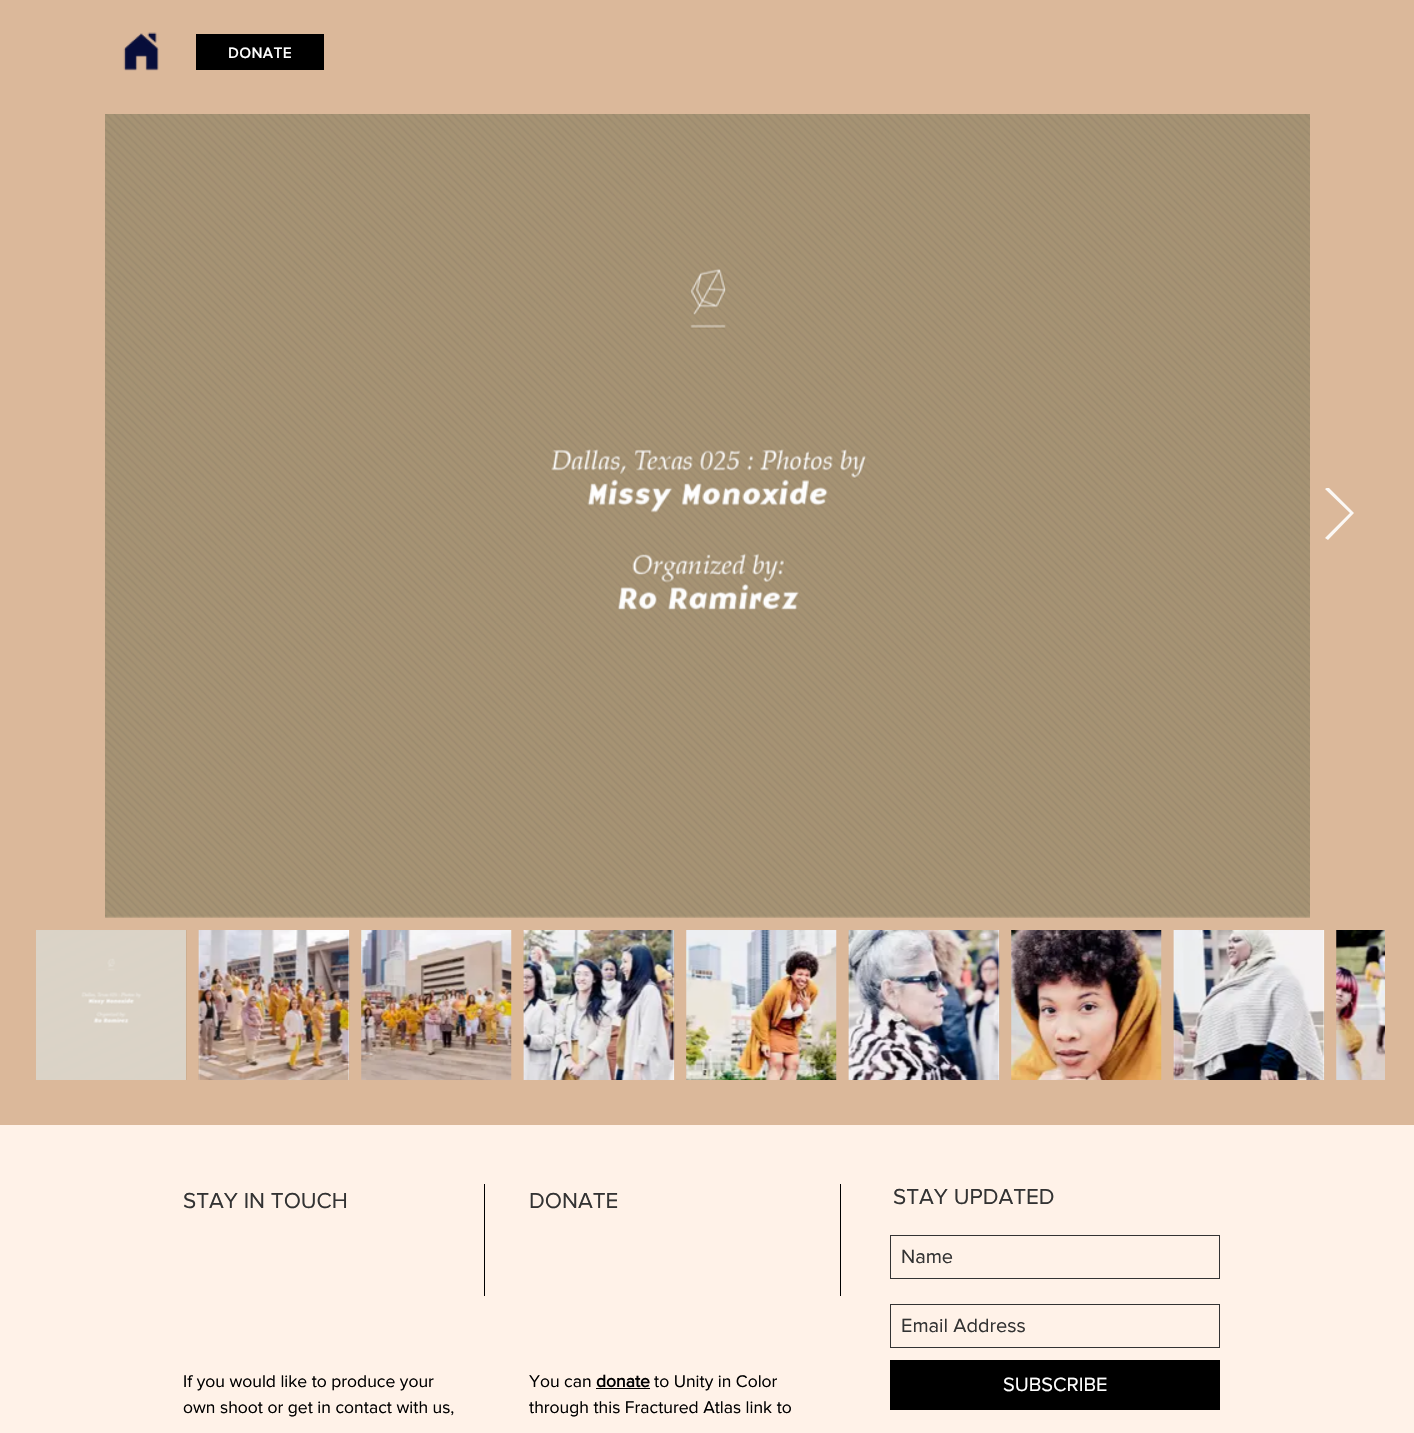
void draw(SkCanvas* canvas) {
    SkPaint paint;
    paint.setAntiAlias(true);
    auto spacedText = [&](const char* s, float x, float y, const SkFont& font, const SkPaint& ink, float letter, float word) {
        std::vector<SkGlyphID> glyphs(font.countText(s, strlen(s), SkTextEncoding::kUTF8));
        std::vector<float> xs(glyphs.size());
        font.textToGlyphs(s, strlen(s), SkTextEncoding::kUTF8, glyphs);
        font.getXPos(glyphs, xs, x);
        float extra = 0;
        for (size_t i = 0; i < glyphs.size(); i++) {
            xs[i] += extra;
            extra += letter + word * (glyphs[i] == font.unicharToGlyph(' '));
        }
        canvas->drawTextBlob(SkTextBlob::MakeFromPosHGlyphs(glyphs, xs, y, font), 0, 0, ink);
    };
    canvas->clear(0xFFDBB89A);
    canvas->drawImageRect(SkImages::DeferredFromEncodedData(SkData::MakeFromFileName("img1.png")), SkRect::MakeXYWH(123, 32, 36, 39), SkSamplingOptions());
    paint.setColor(0xFF000000);
    canvas->drawRect(SkRect::MakeXYWH(196, 34, 128, 36), paint);
    SkFont font1(fontMgr->matchFamilyStyle("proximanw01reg", SkFontStyle::Bold()), 15);
    font1.setSubpixel(true);
    paint.setColor(0xFFFFFFFF);
    spacedText("DONATE", 228, 58, font1, paint, 0.75f, 0);
    canvas->drawImageRect(SkImages::DeferredFromEncodedData(SkData::MakeFromFileName("img2.png")), SkRect::MakeXYWH(105, 114, 1205, 804), SkSamplingOptions());
    canvas->save();
    canvas->clipRect(SkRect::MakeXYWH(1323, 488, 33, 56));
    paint.setColor(0xFFFBF8F5);
    canvas->drawPath(SkPathBuilder().moveTo(1325, 489).lineTo(1328, 487).lineTo(1354, 513).lineTo(1328, 540).lineTo(1325, 538).lineTo(1350, 513).close().detach(), paint);
    canvas->restore();
    canvas->drawImageRect(SkImages::DeferredFromEncodedData(SkData::MakeFromFileName("img3.png")), SkRect::MakeXYWH(36, 930, 151, 150), SkSamplingOptions());
    paint.setColor(0xFFFFFFFF);
    canvas->drawRect(SkRect::MakeXYWH(199, 930, 150, 150), paint);
    canvas->drawImageRect(SkImages::DeferredFromEncodedData(SkData::MakeFromFileName("img4.png")), SkRect::MakeXYWH(198, 930, 152, 150), SkSamplingOptions());
    canvas->drawImageRect(SkImages::DeferredFromEncodedData(SkData::MakeFromFileName("img5.png")), SkRect::MakeXYWH(361, 930, 151, 150), SkSamplingOptions());
    canvas->drawRect(SkRect::MakeXYWH(524, 930, 150, 150), paint);
    canvas->drawImageRect(SkImages::DeferredFromEncodedData(SkData::MakeFromFileName("img6.png")), SkRect::MakeXYWH(523, 930, 152, 150), SkSamplingOptions());
    canvas->drawImageRect(SkImages::DeferredFromEncodedData(SkData::MakeFromFileName("img7.png")), SkRect::MakeXYWH(686, 930, 151, 150), SkSamplingOptions());
    canvas->drawRect(SkRect::MakeXYWH(849, 930, 150, 150), paint);
    canvas->drawImageRect(SkImages::DeferredFromEncodedData(SkData::MakeFromFileName("img8.png")), SkRect::MakeXYWH(848, 930, 152, 150), SkSamplingOptions());
    canvas->drawImageRect(SkImages::DeferredFromEncodedData(SkData::MakeFromFileName("img9.png")), SkRect::MakeXYWH(1011, 930, 151, 150), SkSamplingOptions());
    canvas->drawRect(SkRect::MakeXYWH(1174, 930, 150, 150), paint);
    canvas->drawImageRect(SkImages::DeferredFromEncodedData(SkData::MakeFromFileName("img10.png")), SkRect::MakeXYWH(1173, 930, 152, 150), SkSamplingOptions());
    canvas->drawImageRect(SkImages::DeferredFromEncodedData(SkData::MakeFromFileName("img11.png")), SkRect::MakeXYWH(1336, 930, 49, 150), SkSamplingOptions());
    paint.setColor(0xFFFFF2E8);
    canvas->drawRect(SkRect::MakeXYWH(0, 1125, 1414, 308), paint);
    SkFont font2(fontMgr->matchFamilyStyle("proximanw01reg", SkFontStyle::Normal()), 22.5f);
    font2.setSubpixel(true);
    paint.setColor(0xFF333333);
    canvas->drawString("STAY IN TOUCH", 183, 1208, font2, paint);
    paint.setColor(0xFF000000);
    canvas->drawRect(SkRect::MakeXYWH(484, 1184, 1, 112), paint);
    paint.setColor(0xFF333333);
    canvas->drawString("DONATE", 529, 1208, font2, paint);
    paint.setColor(0xFF000000);
    canvas->drawRect(SkRect::MakeXYWH(840, 1184, 1, 112), paint);
    paint.setColor(0xFF333333);
    canvas->drawString("STAY UPDATED", 893, 1204, font2, paint);
    paint.setStyle(SkPaint::kStroke_Style);
    paint.setStrokeWidth(1);
    canvas->drawRect(SkRect::MakeXYWH(890.5f, 1235.5f, 329, 43), paint);
    SkFont font3(fontMgr->matchFamilyStyle("proximanw01reg", SkFontStyle::Normal()), 20);
    font3.setSubpixel(true);
    paint.setStyle(SkPaint::kFill_Style);
    canvas->drawString("Name", 901, 1263, font3, paint);
    paint.setStyle(SkPaint::kStroke_Style);
    canvas->drawRect(SkRect::MakeXYWH(890.5f, 1304.5f, 329, 43), paint);
    paint.setStyle(SkPaint::kFill_Style);
    canvas->drawString("Email Address", 901, 1332, font3, paint);
    paint.setColor(0xFF000000);
    canvas->drawRect(SkRect::MakeXYWH(890, 1360, 330, 50), paint);
    paint.setColor(0xFFFFFFFF);
    canvas->drawString("SUBSCRIBE", 1003, 1391, font3, paint);
    SkFont font4(fontMgr->matchFamilyStyle("proximanw01reg", SkFontStyle::Normal()), 17.5f);
    font4.setSubpixel(true);
    paint.setColor(0xFF000000);
    canvas->drawString("If you would like to produce your", 183, 1387, font4, paint);
    canvas->drawString("own shoot or get in contact with us,", 183, 1413, font4, paint);
    canvas->drawString("You can", 529, 1387, font4, paint);
    SkFont font5(fontMgr->matchFamilyStyle("proximanw01reg", SkFontStyle::Bold()), 17.5f);
    font5.setSubpixel(true);
    canvas->drawString("donate", 596, 1387, font5, paint);
    canvas->drawRect(SkRect::MakeXYWH(596, 1388, 54, 1), paint);
    canvas->drawString("to Unity in Color", 654, 1387, font4, paint);
    canvas->drawString("through this Fractured Atlas link to", 529, 1413, font4, paint);
}
